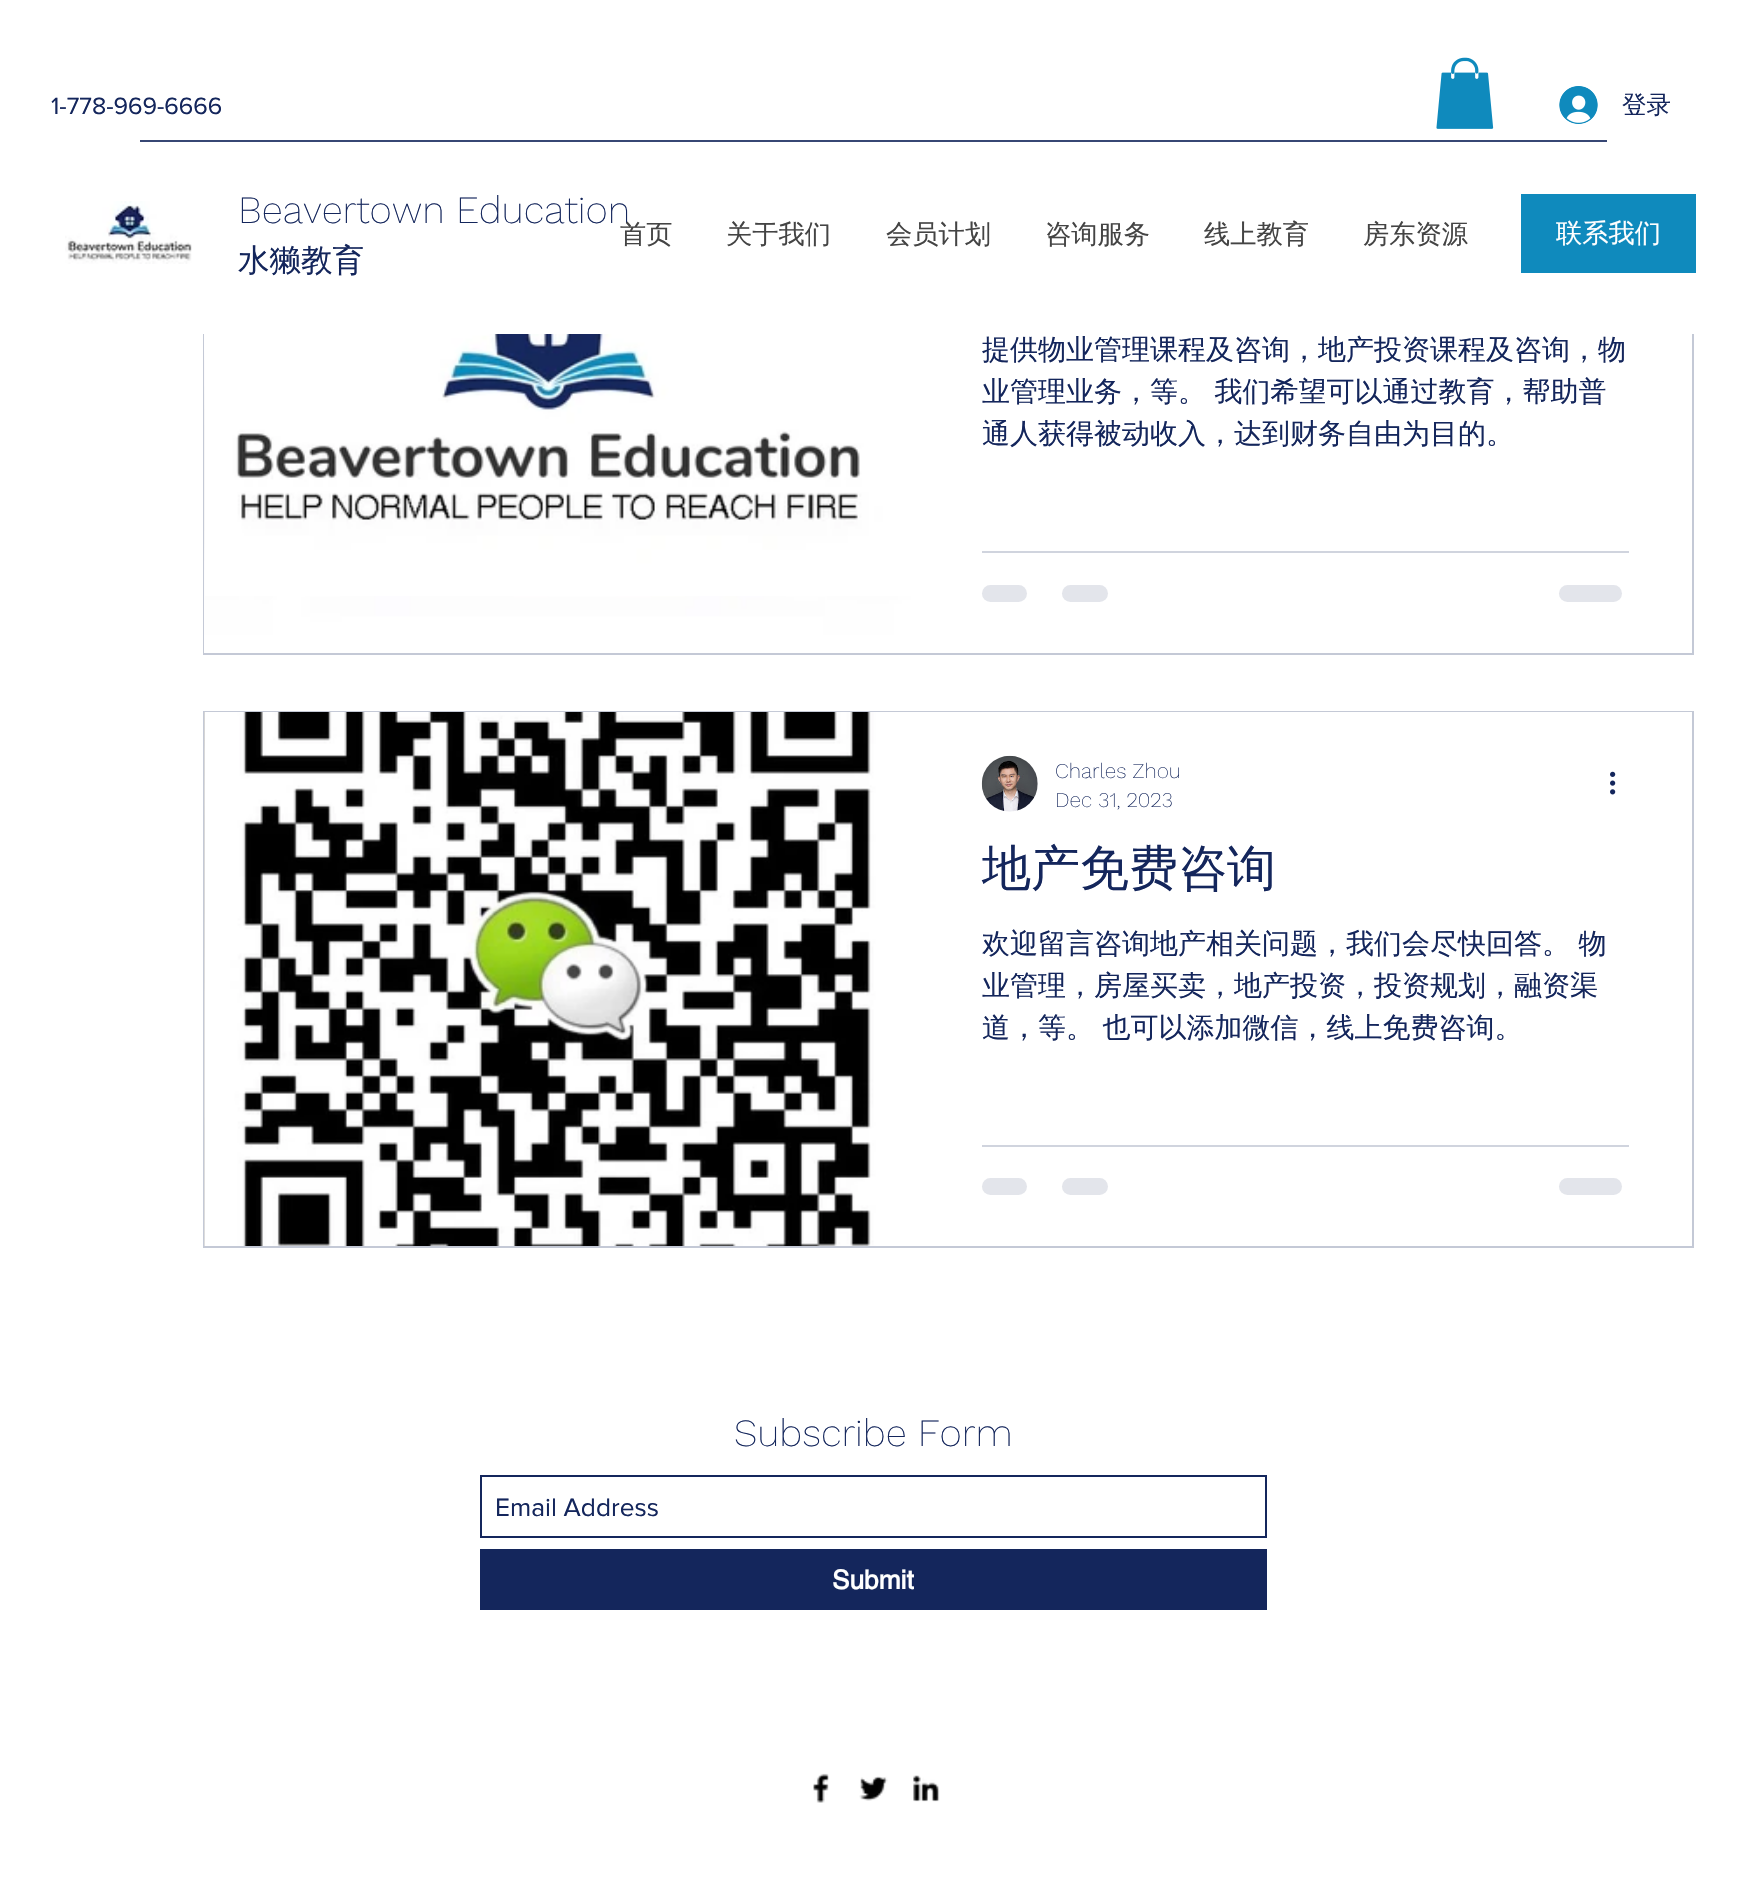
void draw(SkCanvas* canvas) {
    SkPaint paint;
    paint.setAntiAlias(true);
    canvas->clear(0xFFFFFFFF);
    SkFont font1(fontMgr->matchFamilyStyle("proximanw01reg", SkFontStyle::Normal()), 24.5f);
    font1.setSubpixel(true);
    paint.setColor(0xFF14265C);
    canvas->drawString("1-778-969-6666", 51, 114, font1, paint);
    paint.setStyle(SkPaint::kStroke_Style);
    paint.setStrokeWidth(2);
    paint.setColor(0xFFC4C9D6);
    canvas->drawRect(SkRect::MakeXYWH(204, 117, 1489, 537), paint);
    paint.setStyle(SkPaint::kFill_Style);
    paint.setColor(0xFFFFFFFF);
    canvas->drawRect(SkRect::MakeXYWH(203, 116, 1491, 218), paint);
    canvas->drawImageRect(SkImages::DeferredFromEncodedData(SkData::MakeFromFileName("img1.png")), SkRect::MakeXYWH(1436, 57, 58, 72), SkSamplingOptions());
    canvas->drawImageRect(SkImages::DeferredFromEncodedData(SkData::MakeFromFileName("img2.png")), SkRect::MakeXYWH(1559, 86, 39, 38), SkSamplingOptions());
    SkFont font2(fontMgr->matchFamilyStyle("WenQuanYi Zen Hei", SkFontStyle(500, SkFontStyle::kNormal_Width, SkFontStyle::kUpright_Slant)), 24.5f);
    font2.setSubpixel(true);
    paint.setColor(0xFF14265C);
    canvas->drawString("登录", 1622, 113, font2, paint);
    paint.setColor(0xFF374774);
    canvas->drawRect(SkRect::MakeXYWH(140, 140, 1467, 2), paint);
    canvas->drawImageRect(SkImages::DeferredFromEncodedData(SkData::MakeFromFileName("img3.png")), SkRect::MakeXYWH(65, 201, 127, 63), SkSamplingOptions());
    SkFont font3(fontMgr->matchFamilyStyle("Work Sans", SkFontStyle(200, SkFontStyle::kNormal_Width, SkFontStyle::kUpright_Slant)), 38.5f);
    font3.setSubpixel(true);
    paint.setColor(0xFF14265C);
    canvas->drawString("Beavertown Education", 238, 223, font3, paint);
    SkFont font4(fontMgr->matchFamilyStyle("WenQuanYi Zen Hei", SkFontStyle(500, SkFontStyle::kNormal_Width, SkFontStyle::kUpright_Slant)), 31.5f);
    font4.setSubpixel(true);
    canvas->drawString("水獭教育", 238, 271, font4, paint);
    SkFont font5(fontMgr->matchFamilyStyle("WenQuanYi Zen Hei", SkFontStyle(500, SkFontStyle::kNormal_Width, SkFontStyle::kUpright_Slant)), 26.25f);
    font5.setSubpixel(true);
    paint.setColor(0xFF444444);
    canvas->drawString("首页", 620, 243, font5, paint);
    canvas->drawString("关于我们", 726, 243, font5, paint);
    canvas->drawString("会员计划", 886, 243, font5, paint);
    canvas->drawString("咨询服务", 1045, 243, font5, paint);
    canvas->drawString("线上教育", 1204, 243, font5, paint);
    canvas->drawString("房东资源", 1363, 243, font5, paint);
    paint.setColor(0xFF0F8ABD);
    canvas->drawRect(SkRect::MakeXYWH(1521, 194, 175, 79), paint);
    paint.setColor(0xFFFFFFFF);
    canvas->drawString("联系我们", 1556, 242, font5, paint);
    canvas->drawImageRect(SkImages::DeferredFromEncodedData(SkData::MakeFromFileName("img4.png")), SkRect::MakeXYWH(204, 334, 715, 319), SkSamplingOptions());
    canvas->drawImageRect(SkImages::DeferredFromEncodedData(SkData::MakeFromFileName("img5.png")), SkRect::MakeXYWH(205, 334, 714, 262), SkSamplingOptions());
    SkFont font6(fontMgr->matchFamilyStyle("WenQuanYi Zen Hei", SkFontStyle(500, SkFontStyle::kNormal_Width, SkFontStyle::kUpright_Slant)), 28);
    font6.setSubpixel(true);
    paint.setColor(0xFF14265C);
    canvas->drawString("提供物业管理课程及咨询，地产投资课程及咨询，物", 982, 359, font6, paint);
    canvas->drawString("业管理业务，等。 我们希望可以通过教育，帮助普", 982, 401, font6, paint);
    canvas->drawString("通人获得被动收入，达到财务自由为目的。", 982, 443, font6, paint);
    paint.setColor(0xFFD0D4DE);
    canvas->drawRect(SkRect::MakeXYWH(982, 551, 647, 2), paint);
    paint.setColor(0xFFE3E5EB);
    canvas->drawRoundRect(SkRect::MakeXYWH(982, 585, 45, 17), 8.5f, 8.5f, paint);
    canvas->drawRoundRect(SkRect::MakeXYWH(1062, 585, 46, 17), 8.5f, 8.5f, paint);
    canvas->drawRoundRect(SkRect::MakeXYWH(1559, 585, 63, 17), 8.5f, 8.5f, paint);
    paint.setStyle(SkPaint::kStroke_Style);
    paint.setColor(0xFFC4C9D6);
    canvas->drawRect(SkRect::MakeXYWH(204, 712, 1489, 535), paint);
    canvas->drawImageRect(SkImages::DeferredFromEncodedData(SkData::MakeFromFileName("img6.png")), SkRect::MakeXYWH(204, 712, 1, 534), SkSamplingOptions());
    canvas->drawImageRect(SkImages::DeferredFromEncodedData(SkData::MakeFromFileName("img7.png")), SkRect::MakeXYWH(205, 712, 714, 534), SkSamplingOptions());
    paint.setStyle(SkPaint::kFill_Style);
    paint.setColor(0xFFFFFFFF);
    canvas->drawRect(SkRect::MakeXYWH(919, 712, 773, 1), paint);
    canvas->drawImageRect(SkImages::DeferredFromEncodedData(SkData::MakeFromFileName("img8.png")), SkRect::MakeXYWH(981, 755, 57, 57), SkSamplingOptions());
    SkFont font7(fontMgr->matchFamilyStyle("Work Sans", SkFontStyle(200, SkFontStyle::kNormal_Width, SkFontStyle::kUpright_Slant)), 21);
    font7.setSubpixel(true);
    paint.setColor(0xFF14265C);
    canvas->drawString("Charles Zhou", 1055, 778, font7, paint);
    canvas->drawString("Dec 31, 2023", 1055, 807, font7, paint);
    canvas->drawImageRect(SkImages::DeferredFromEncodedData(SkData::MakeFromFileName("img9.png")), SkRect::MakeXYWH(1610, 771, 6, 24), SkSamplingOptions());
    SkFont font8(fontMgr->matchFamilyStyle("WenQuanYi Zen Hei", SkFontStyle(500, SkFontStyle::kNormal_Width, SkFontStyle::kUpright_Slant)), 49);
    font8.setSubpixel(true);
    canvas->drawString("地产免费咨询", 982, 885, font8, paint);
    canvas->drawString("欢迎留言咨询地产相关问题，我们会尽快回答。 物", 982, 953, font6, paint);
    canvas->drawString("业管理，房屋买卖，地产投资，投资规划，融资渠", 982, 995, font6, paint);
    canvas->drawString("道，等。 也可以添加微信，线上免费咨询。", 982, 1037, font6, paint);
    paint.setColor(0xFFD0D4DE);
    canvas->drawRect(SkRect::MakeXYWH(982, 1145, 647, 2), paint);
    paint.setColor(0xFFE3E5EB);
    canvas->drawRoundRect(SkRect::MakeXYWH(982, 1178, 45, 17), 8.5f, 8.5f, paint);
    canvas->drawRoundRect(SkRect::MakeXYWH(1062, 1178, 46, 17), 8.5f, 8.5f, paint);
    canvas->drawRoundRect(SkRect::MakeXYWH(1559, 1178, 63, 17), 8.5f, 8.5f, paint);
    paint.setColor(0xFF14265C);
    canvas->drawString("Subscribe Form", 734, 1446, font3, paint);
    paint.setStyle(SkPaint::kStroke_Style);
    canvas->drawRect(SkRect::MakeXYWH(481, 1476, 785, 61), paint);
    SkFont font9(fontMgr->matchFamilyStyle("proximanw01reg", SkFontStyle::Normal()), 26.25f);
    font9.setSubpixel(true);
    paint.setStyle(SkPaint::kFill_Style);
    canvas->drawString("Email Address", 495, 1516, font9, paint);
    canvas->drawRect(SkRect::MakeXYWH(480, 1549, 787, 61), paint);
    SkFont font10(fontMgr->matchFamilyStyle("helvetica", SkFontStyle::Bold()), 26.25f);
    font10.setSubpixel(true);
    paint.setColor(0xFFFFFFFF);
    canvas->drawString("Submit", 832, 1589, font10, paint);
    canvas->drawImageRect(SkImages::DeferredFromEncodedData(SkData::MakeFromFileName("img10.png")), SkRect::MakeXYWH(813, 1773, 16, 30), SkSamplingOptions());
    canvas->drawImageRect(SkImages::DeferredFromEncodedData(SkData::MakeFromFileName("img11.png")), SkRect::MakeXYWH(859, 1776, 29, 25), SkSamplingOptions());
    canvas->drawImageRect(SkImages::DeferredFromEncodedData(SkData::MakeFromFileName("img12.png")), SkRect::MakeXYWH(913, 1775, 27, 27), SkSamplingOptions());
}
